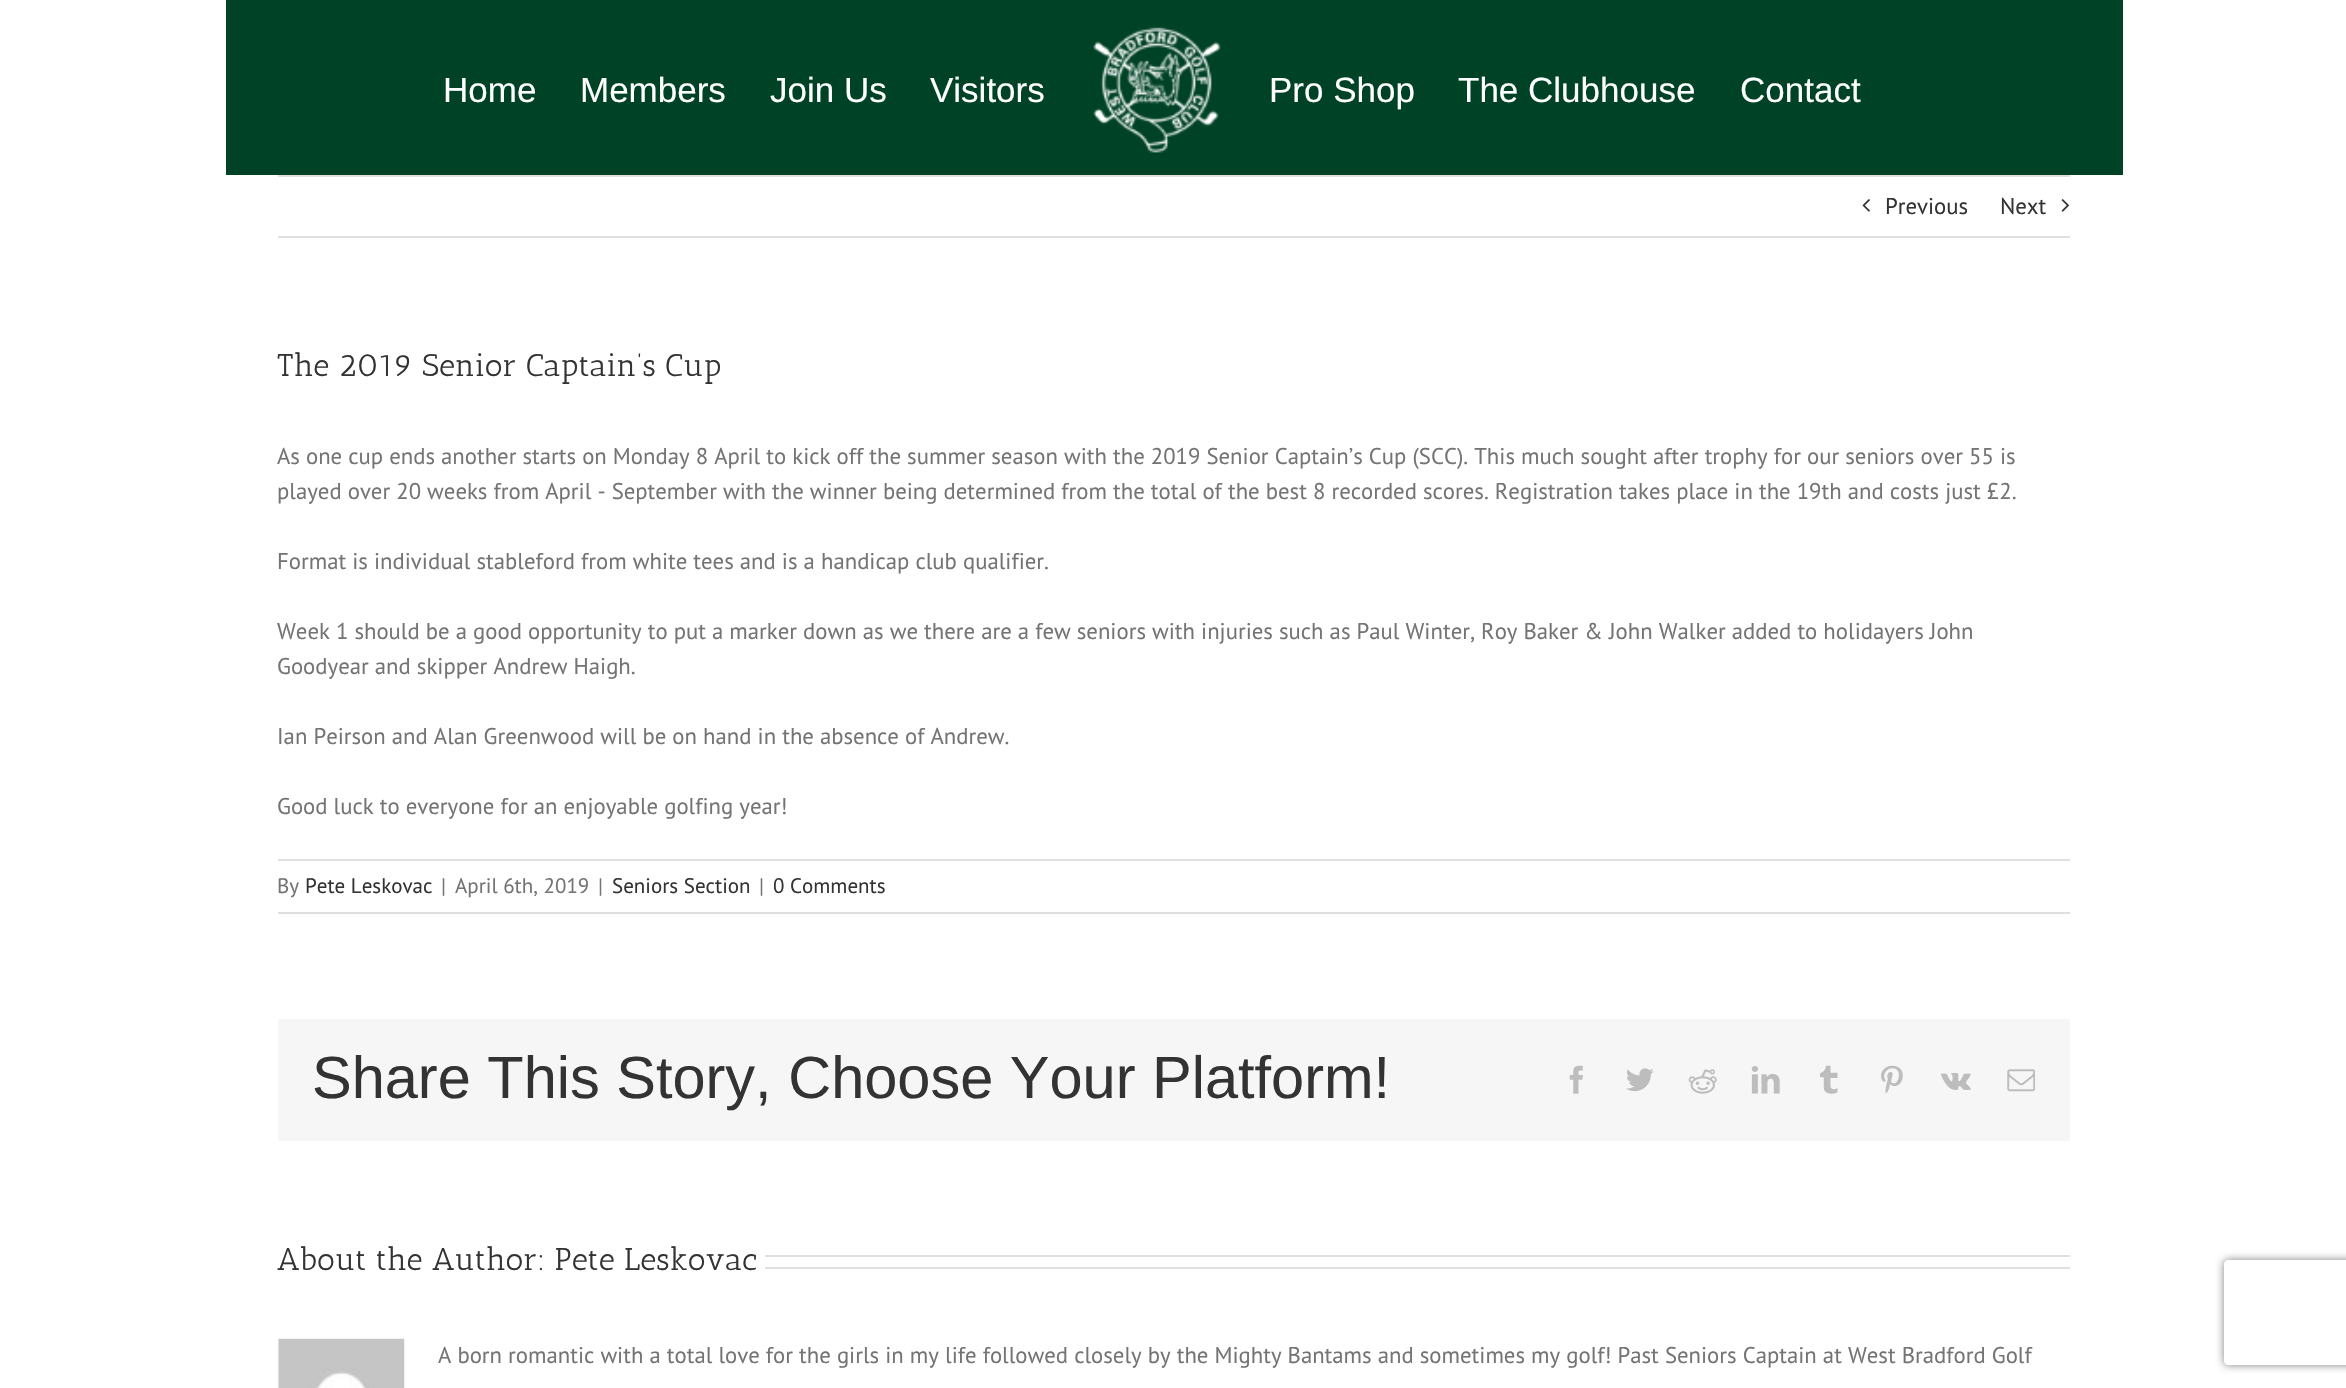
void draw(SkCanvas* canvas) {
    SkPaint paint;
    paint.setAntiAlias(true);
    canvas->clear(0xFFFFFFFF);
    paint.setColor(0xFF004225);
    canvas->drawRect(SkRect::MakeXYWH(226, 0, 1897, 175), paint);
    SkFont font1(fontMgr->matchFamilyStyle("Liberation Sans", SkFontStyle::Normal()), 35);
    font1.setSubpixel(true);
    paint.setColor(0xFFFFFFFF);
    canvas->drawString("Home", 443, 102, font1, paint);
    canvas->drawString("Members", 580, 102, font1, paint);
    canvas->drawString("Join Us", 770, 102, font1, paint);
    canvas->drawString("Visitors", 930, 102, font1, paint);
    canvas->drawImageRect(SkImages::DeferredFromEncodedData(SkData::MakeFromFileName("img1.png")), SkRect::MakeXYWH(1093, 27, 128, 126), SkSamplingOptions());
    canvas->drawString("Pro Shop", 1269, 102, font1, paint);
    canvas->drawString("The Clubhouse", 1458, 102, font1, paint);
    canvas->drawString("Contact", 1740, 102, font1, paint);
    paint.setColor(0xFFE0DEDE);
    canvas->drawRect(SkRect::MakeXYWH(278, 175, 1792, 2), paint);
    canvas->drawRect(SkRect::MakeXYWH(278, 236, 1792, 2), paint);
    canvas->drawImageRect(SkImages::DeferredFromEncodedData(SkData::MakeFromFileName("img2.png")), SkRect::MakeXYWH(1862, 199, 8, 13), SkSamplingOptions());
    SkFont font2(fontMgr->matchFamilyStyle("PT Sans", SkFontStyle::Normal()), 22.75f);
    font2.setSubpixel(true);
    paint.setColor(0xFF333333);
    canvas->drawString("Previous", 1885, 214, font2, paint);
    canvas->drawString("Next", 2000, 214, font2, paint);
    canvas->drawImageRect(SkImages::DeferredFromEncodedData(SkData::MakeFromFileName("img3.png")), SkRect::MakeXYWH(2061, 199, 8, 13), SkSamplingOptions());
    SkFont font3(fontMgr->matchFamilyStyle("Antic Slab", SkFontStyle::Normal()), 31.5f);
    font3.setSubpixel(true);
    canvas->drawString("The 2019 Senior Captain’s Cup", 277, 376, font3, paint);
    paint.setColor(0xFF747474);
    canvas->drawString("As one cup ends another starts on Monday 8 April to kick off the summer season with the 2019 Senior Captain’s Cup (SCC). This much sought after trophy for our seniors over 55 is", 277, 464, font2, paint);
    canvas->drawString("played over 20 weeks from April - September with the winner being determined from the total of the best 8 recorded scores. Registration takes place in the 19th and costs just £2.", 277, 499, font2, paint);
    canvas->drawString("Format is individual stableford from white tees and is a handicap club qualifier.", 277, 569, font2, paint);
    canvas->drawString("Week 1 should be a good opportunity to put a marker down as we there are a few seniors with injuries such as Paul Winter, Roy Baker & John Walker added to holidayers John", 277, 639, font2, paint);
    canvas->drawString("Goodyear and skipper Andrew Haigh.", 277, 674, font2, paint);
    canvas->drawString("Ian Peirson and Alan Greenwood will be on hand in the absence of Andrew.", 277, 744, font2, paint);
    canvas->drawString("Good luck to everyone for an enjoyable golfing year!", 277, 814, font2, paint);
    paint.setColor(0xFFE0DEDE);
    canvas->drawRect(SkRect::MakeXYWH(278, 859, 1792, 2), paint);
    canvas->drawRect(SkRect::MakeXYWH(278, 912, 1792, 2), paint);
    SkFont font4(fontMgr->matchFamilyStyle("PT Sans", SkFontStyle::Normal()), 21);
    font4.setSubpixel(true);
    paint.setColor(0xFF747474);
    canvas->drawString("By", 277, 893, font4, paint);
    paint.setColor(0xFF333333);
    canvas->drawString("Pete Leskovac", 305, 893, font4, paint);
    paint.setColor(0xFF747474);
    canvas->drawString("|", 441, 893, font4, paint);
    canvas->drawString("April 6th, 2019", 455, 893, font4, paint);
    canvas->drawString("|", 598, 893, font4, paint);
    paint.setColor(0xFF333333);
    canvas->drawString("Seniors Section", 612, 893, font4, paint);
    paint.setColor(0xFF747474);
    canvas->drawString("|", 759, 893, font4, paint);
    paint.setColor(0xFF333333);
    canvas->drawString("0 Comments", 773, 893, font4, paint);
    paint.setColor(0xFFF6F6F6);
    canvas->drawRect(SkRect::MakeXYWH(278, 1019, 1792, 122), paint);
    SkFont font5(fontMgr->matchFamilyStyle("Liberation Sans", SkFontStyle::Normal()), 59.5f);
    font5.setSubpixel(true);
    paint.setColor(0xFF333333);
    canvas->drawString("Share This Story, Choose Your Platform!", 312, 1098, font5, paint);
    canvas->drawImageRect(SkImages::DeferredFromEncodedData(SkData::MakeFromFileName("img4.png")), SkRect::MakeXYWH(1569, 1065, 14, 29), SkSamplingOptions());
    canvas->drawImageRect(SkImages::DeferredFromEncodedData(SkData::MakeFromFileName("img5.png")), SkRect::MakeXYWH(1626, 1068, 28, 24), SkSamplingOptions());
    canvas->drawImageRect(SkImages::DeferredFromEncodedData(SkData::MakeFromFileName("img6.png")), SkRect::MakeXYWH(1688, 1069, 29, 25), SkSamplingOptions());
    canvas->drawImageRect(SkImages::DeferredFromEncodedData(SkData::MakeFromFileName("img7.png")), SkRect::MakeXYWH(1751, 1066, 29, 28), SkSamplingOptions());
    canvas->drawImageRect(SkImages::DeferredFromEncodedData(SkData::MakeFromFileName("img8.png")), SkRect::MakeXYWH(1820, 1065, 18, 29), SkSamplingOptions());
    canvas->drawImageRect(SkImages::DeferredFromEncodedData(SkData::MakeFromFileName("img9.png")), SkRect::MakeXYWH(1881, 1065, 22, 29), SkSamplingOptions());
    canvas->drawImageRect(SkImages::DeferredFromEncodedData(SkData::MakeFromFileName("img10.png")), SkRect::MakeXYWH(1940, 1072, 31, 18), SkSamplingOptions());
    canvas->drawImageRect(SkImages::DeferredFromEncodedData(SkData::MakeFromFileName("img11.png")), SkRect::MakeXYWH(2007, 1069, 28, 23), SkSamplingOptions());
    canvas->drawString("About the Author: Pete Leskovac", 277, 1270, font3, paint);
    paint.setColor(0xFFE0DEDE);
    canvas->drawRect(SkRect::MakeXYWH(765, 1255, 1305, 2), paint);
    canvas->drawRect(SkRect::MakeXYWH(765, 1267, 1305, 2), paint);
    canvas->drawImageRect(SkImages::DeferredFromEncodedData(SkData::MakeFromFileName("img12.png")), SkRect::MakeXYWH(278, 1338, 127, 50), SkSamplingOptions());
    paint.setColor(0xFF747474);
    canvas->drawString("A born romantic with a total love for the girls in my life followed closely by the Mighty Bantams and sometimes my golf! Past Seniors Captain at West Bradford Golf", 438, 1363, font2, paint);
    canvas->save();
    canvas->clipPath(SkPathBuilder(SkPathFillType::kEvenOdd).moveTo(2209, 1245).lineTo(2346, 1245).lineTo(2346, 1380).lineTo(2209, 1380).close().moveTo(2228, 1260).lineTo(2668, 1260).cubicTo(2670, 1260, 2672, 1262, 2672, 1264).lineTo(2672, 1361).cubicTo(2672, 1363, 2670, 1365, 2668, 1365).lineTo(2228, 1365).cubicTo(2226, 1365, 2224, 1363, 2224, 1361).lineTo(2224, 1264).cubicTo(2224, 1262, 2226, 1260, 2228, 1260).close().detach(), true);
    paint.setColor(0xFF808080);
    paint.setMaskFilter(SkMaskFilter::MakeBlur(kNormal_SkBlurStyle, 4.5f));
    canvas->drawRoundRect(SkRect::MakeXYWH(2224, 1260, 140, 105), 4, 4, paint);
    paint.setMaskFilter(nullptr);
    canvas->restore();
}
